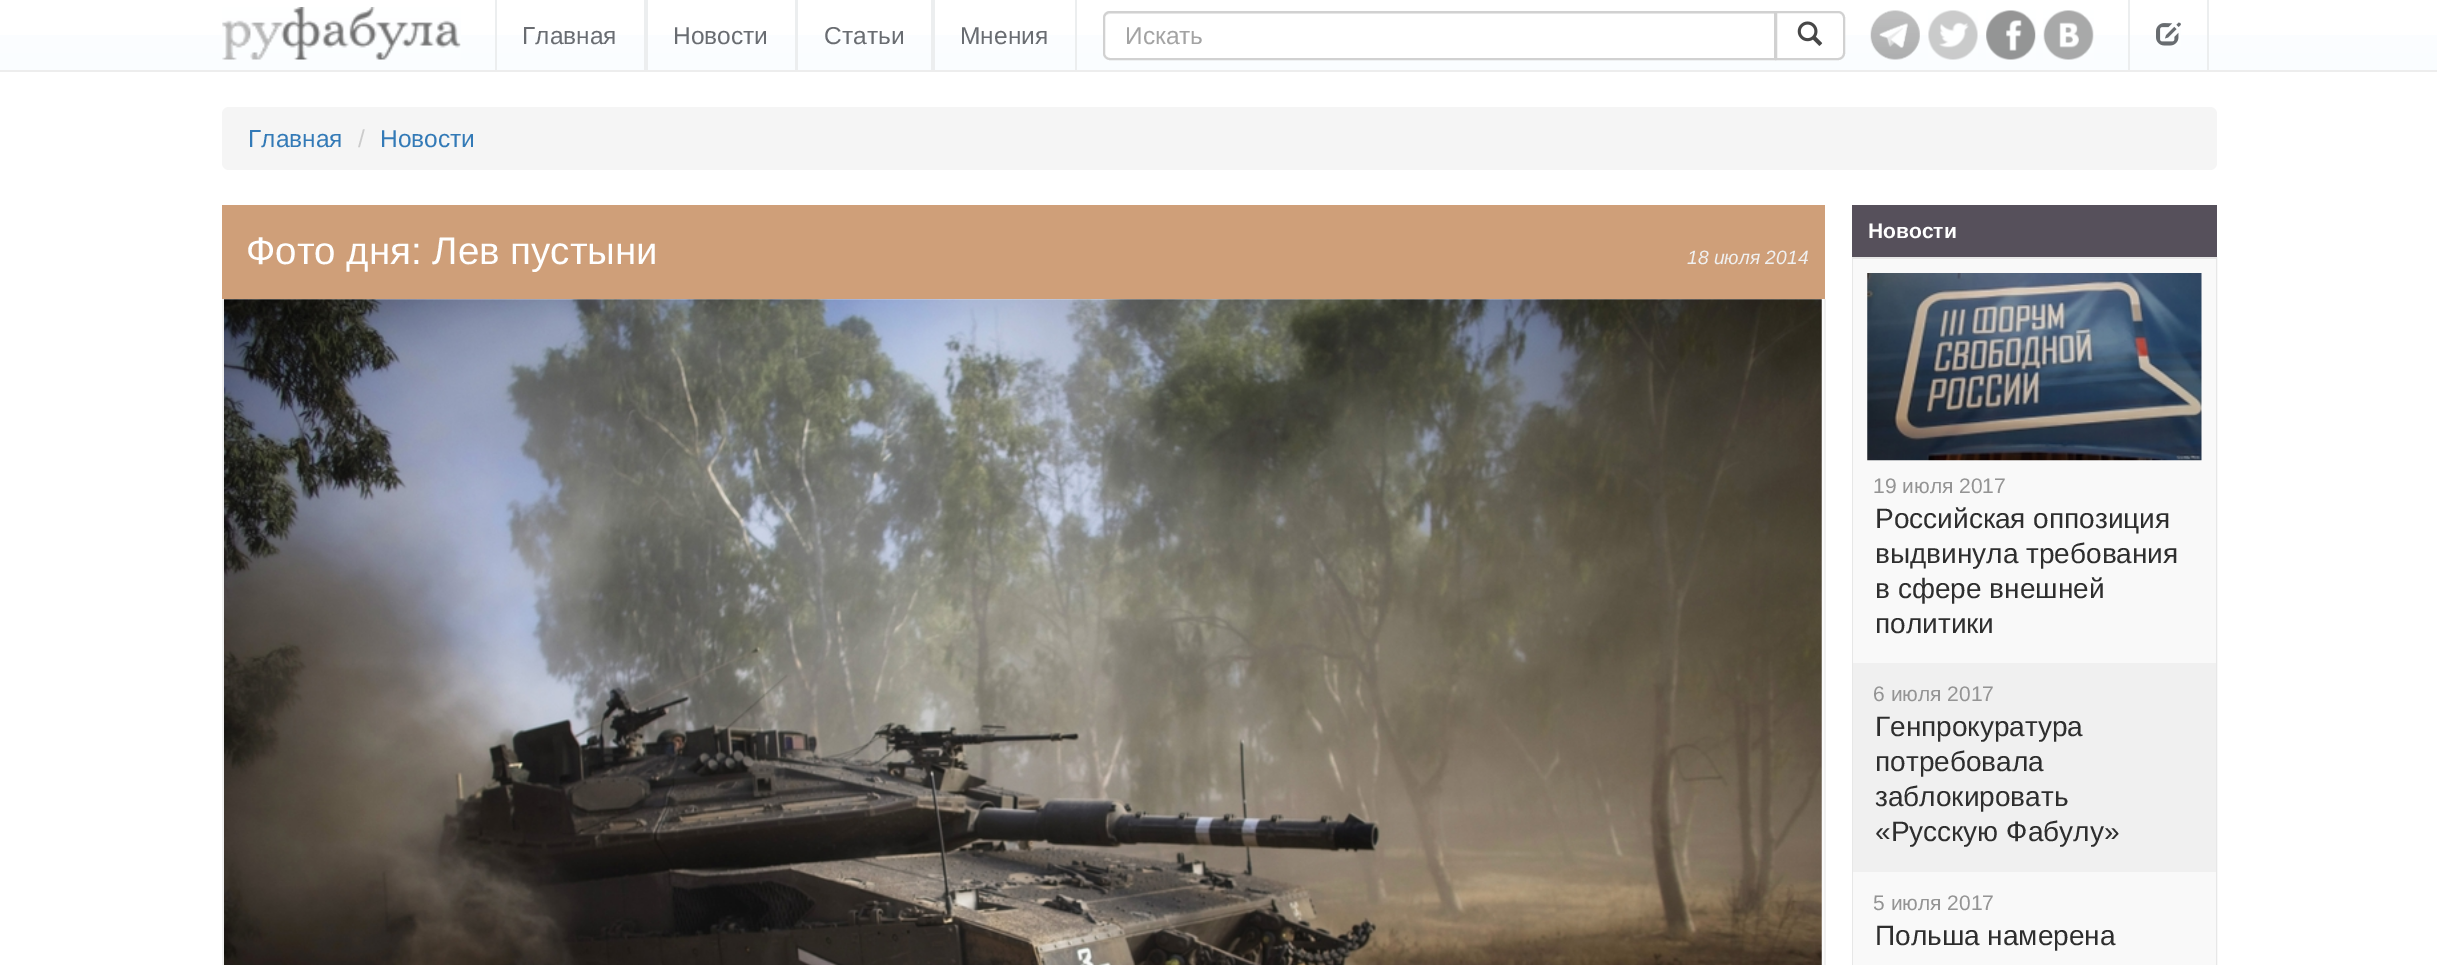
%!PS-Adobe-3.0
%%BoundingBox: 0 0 2437 965
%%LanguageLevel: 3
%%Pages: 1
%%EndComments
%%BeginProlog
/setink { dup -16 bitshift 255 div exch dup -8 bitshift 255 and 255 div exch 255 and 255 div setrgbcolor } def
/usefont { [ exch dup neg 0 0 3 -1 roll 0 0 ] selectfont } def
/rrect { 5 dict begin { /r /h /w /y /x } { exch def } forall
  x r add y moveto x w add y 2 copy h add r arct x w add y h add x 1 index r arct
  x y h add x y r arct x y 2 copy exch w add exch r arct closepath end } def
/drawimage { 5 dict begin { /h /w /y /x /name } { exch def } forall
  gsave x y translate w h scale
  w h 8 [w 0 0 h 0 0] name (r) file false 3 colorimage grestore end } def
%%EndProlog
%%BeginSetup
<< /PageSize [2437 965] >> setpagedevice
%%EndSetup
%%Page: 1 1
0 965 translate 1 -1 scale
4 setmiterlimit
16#FFFFFF setink
0 0 2437 965 rectfill
gsave 0 35 moveto 2437 35 lineto 2437 70 lineto 0 70 lineto closepath clip newpath
<< /ShadingType 2 /ColorSpace /DeviceRGB /Coords [1219 0 1219 70] /Extend [true true] /Function << /FunctionType 2 /Domain [0 1] /C0 [1 1 1] /C1 [0.98 0.992 1] /N 1 >> >> shfill grestore
16#EDEDED setink
0 70 2437 2 rectfill
(img1.raw) 222 7 239 53 drawimage
16#ECEEEF setink
644 0 4 70 rectfill
495 0 2 70 rectfill
/LiberationSans-Regular 24.5 usefont
16#696C71 setink
522 44 moveto (Главная) show
16#ECEEEF setink
795 0 3 70 rectfill
16#696C71 setink
673 44 moveto (Новости) show
16#ECEEEF setink
931 0 4 70 rectfill
16#696C71 setink
824 44 moveto (Статьи) show
16#ECEEEF setink
1075 0 2 70 rectfill
16#696C71 setink
960 44 moveto (Мнения) show
16#FFFFFF setink
1776 12 moveto 1838 12 lineto 1841.5 12 1844 14.5 1844 18 curveto 1844 53 lineto 1844 56.5 1841.5 59 1838 59 curveto 1776 59 lineto closepath gsave fill grestore
16#D1D1D1 setink
2 setlinewidth
stroke
16#FFFFFF setink
1110 11 moveto 1776 11 lineto 1776 60 lineto 1110 60 lineto 1106 60 1103 57 1103 53 curveto 1103 18 lineto 1103 14 1106 11 1110 11 curveto closepath fill
16#EEEEEE setink
1110 14 moveto 1774 14 lineto 1774 58 lineto 1775 58 lineto 1775 12 lineto 1109 12 lineto 1106 12 1104 14 1104 17 curveto 1104 19 lineto 1104 16 1107 14 1110 14 curveto closepath fill
16#D1D1D1 setink
1110 12 moveto 1775 12 lineto 1775 59 lineto 1110 59 lineto 1106.5 59 1104 56.5 1104 53 curveto 1104 18 lineto 1104 14.5 1106.5 12 1110 12 curveto closepath stroke
16#A3A3A3 setink
1125 44 moveto (Искать) show
(img2.raw) 1797 21 26 25 drawimage
(img3.raw) 1870 10 50 50 drawimage
(img4.raw) 1928 10 50 50 drawimage
(img5.raw) 1986 10 50 50 drawimage
(img6.raw) 2043 10 51 50 drawimage
16#ECEEEF setink
2207 0 2 70 rectfill
2128 0 2 70 rectfill
(img7.raw) 2156 22 25 24 drawimage
16#F5F5F5 setink
222 107 1995 63 7 rrect fill
16#337AB7 setink
248 147 moveto (Главная) show
16#CCCCCC setink
358 147 moveto (/) show
16#337AB7 setink
380 147 moveto (Новости) show
16#CF9F79 setink
222 205 1603 94 rectfill
/LiberationSans-Regular 38.5 usefont
16#FFFFFF setink
246 264 moveto (Фото дня: Лев пустыни) show
/LiberationSans-Italic 19.25 usefont
16#F0F0F0 setink
1687 264 moveto (18 июля 2014) show
[
    [1824 299 2 666 16#F0F0F0]
    [222 299 2 666 16#F0F0F0]
    [224 299 1600 666 16#FBFBFB]
] { aload pop setink rectfill } forall
(img8.raw) 224 299 1598 666 drawimage
16#56505B setink
1852 205 365 52 rectfill
/LiberationSans-Bold 21 usefont
16#FFFFFF setink
1868 238 moveto (Новости) show
16#E7E7E7 setink
1853 258 363 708 rectstroke
16#F9F9F9 setink
1853 259 363 404 rectfill
(img9.raw) 1867 273 335 188 drawimage
/LiberationSans-Regular 21 usefont
16#949494 setink
1873 493 moveto (19 июля 2017) show
/LiberationSans-Regular 28 usefont
16#2E2E2E setink
[
    [(Российская оппозиция) 1875 528]
    [(выдвинула требования) 1875 563]
    [(в сфере внешней) 1875 598]
    [(политики) 1875 633]
] { aload pop moveto show } forall
16#F0F0F0 setink
1853 663 363 209 rectfill
/LiberationSans-Regular 21 usefont
16#949494 setink
1873 701 moveto (6 июля 2017) show
/LiberationSans-Regular 28 usefont
16#2E2E2E setink
[
    [(Генпрокуратура) 1875 736]
    [(потребовала) 1875 771]
    [(заблокировать) 1875 806]
    [(«Русскую Фабулу») 1875 841]
] { aload pop moveto show } forall
16#F9F9F9 setink
1853 872 363 93 rectfill
/LiberationSans-Regular 21 usefont
16#949494 setink
1873 910 moveto (5 июля 2017) show
/LiberationSans-Regular 28 usefont
16#2E2E2E setink
1875 945 moveto (Польша намерена) show
showpage
%%EOF
